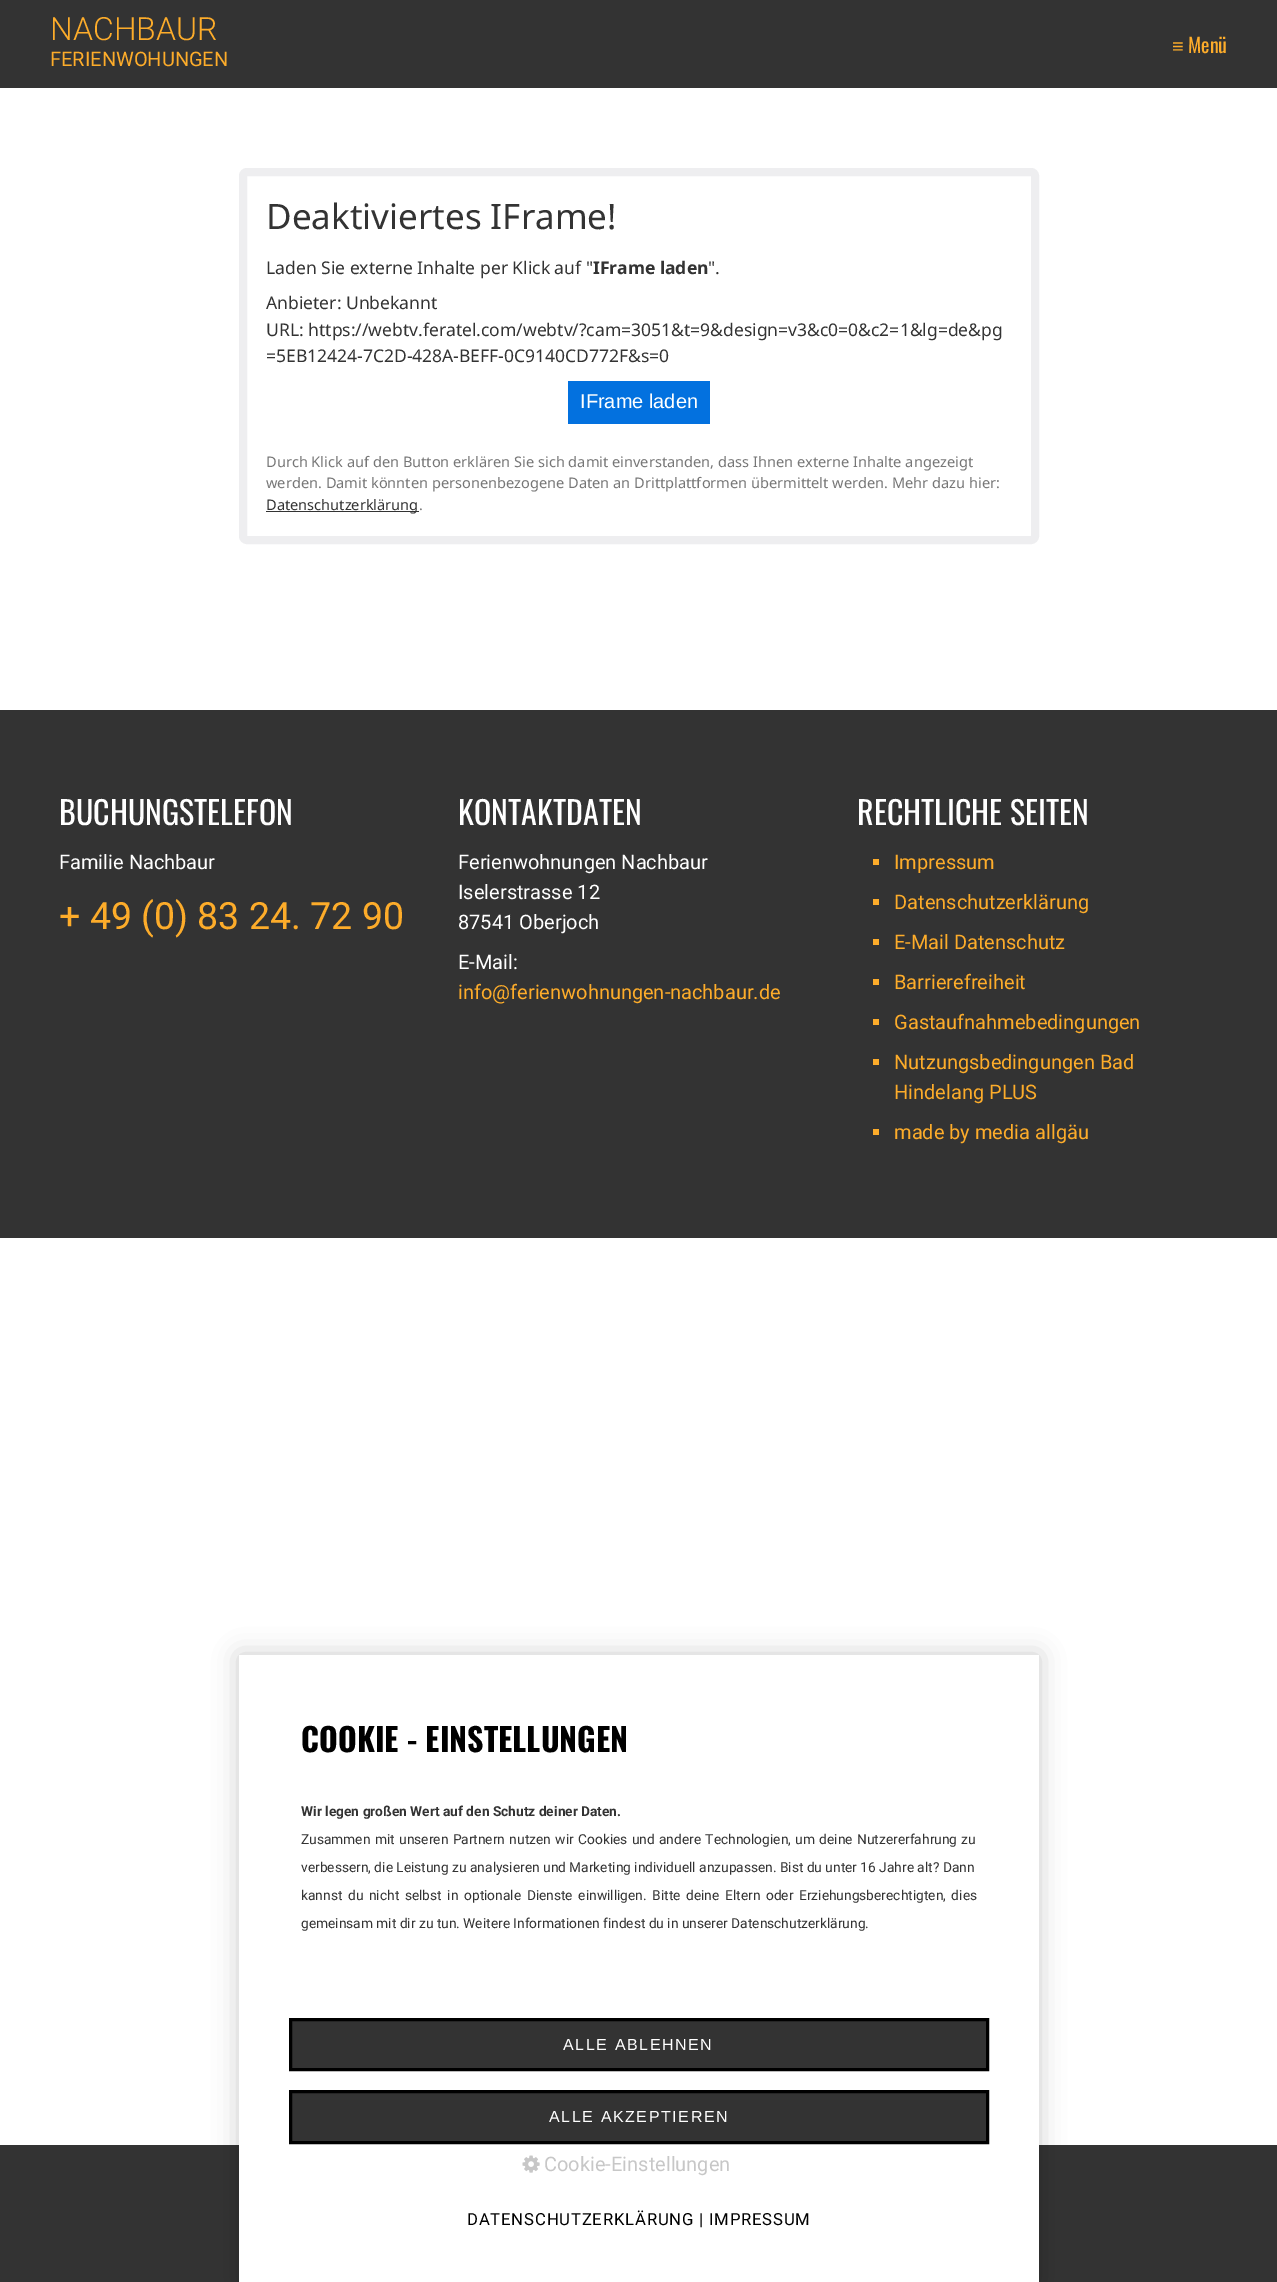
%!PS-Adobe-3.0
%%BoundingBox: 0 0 1277 2282
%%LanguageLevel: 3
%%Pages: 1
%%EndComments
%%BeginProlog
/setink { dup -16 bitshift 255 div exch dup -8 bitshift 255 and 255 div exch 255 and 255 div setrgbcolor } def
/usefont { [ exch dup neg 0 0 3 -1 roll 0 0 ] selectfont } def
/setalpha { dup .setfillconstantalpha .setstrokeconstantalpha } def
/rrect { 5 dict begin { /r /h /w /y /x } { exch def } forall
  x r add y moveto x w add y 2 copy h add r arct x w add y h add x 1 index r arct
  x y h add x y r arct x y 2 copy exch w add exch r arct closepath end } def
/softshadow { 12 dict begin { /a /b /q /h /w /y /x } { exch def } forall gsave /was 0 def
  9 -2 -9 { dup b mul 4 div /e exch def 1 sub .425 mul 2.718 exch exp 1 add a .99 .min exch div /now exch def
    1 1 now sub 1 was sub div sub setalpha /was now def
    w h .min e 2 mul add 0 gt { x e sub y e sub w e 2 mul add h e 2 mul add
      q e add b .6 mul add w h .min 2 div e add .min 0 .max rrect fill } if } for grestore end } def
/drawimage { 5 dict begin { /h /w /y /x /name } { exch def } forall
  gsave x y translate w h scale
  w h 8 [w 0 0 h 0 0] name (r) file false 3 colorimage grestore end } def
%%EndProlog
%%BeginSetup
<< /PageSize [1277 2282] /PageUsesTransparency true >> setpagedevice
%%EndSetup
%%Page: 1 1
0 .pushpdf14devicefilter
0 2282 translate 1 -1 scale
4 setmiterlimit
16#FFFFFF setink
0 0 1277 2282 rectfill
16#333333 setink
0 0 1277 88 rectfill
/Roboto-Light 32 usefont
16#FDAC2A setink
50 40 moveto (NACHBAUR) show
/Roboto-Regular 20 usefont
50 66 moveto (FERIENWOHUNGEN) show
/LiberationSans-Regular 20 usefont
1172 53 moveto (≡) show
/Oswald-Regular 20 usefont
1188 53 moveto (Menü) show
16#EEEEF0 setink
8 setlinewidth
243 172 792 368 4 rrect stroke
/NotoSans-Regular 35 usefont
16#333333 setink
266 229 moveto (Deaktiviertes IFrame!) show
/NotoSans-Regular 17.5 usefont
266 274 moveto (Laden Sie externe Inhalte per Klick auf ") show
/NotoSans-Bold 17.5 usefont
593 274 moveto (IFrame laden) show
/NotoSans-Regular 17.5 usefont
[
    [(".) 708 274]
    [(Anbieter: Unbekannt) 266 309]
    [(URL: https://webtv.feratel.com/webtv/?cam=3051&t=9&design=v3&c0=0&c2=1&lg=de&pg) 266 336]
    [(=5EB12424-7C2D-428A-BEFF-0C9140CD772F&s=0) 266 362]
] { aload pop moveto show } forall
16#0371DF setink
568 381 142 43 rectfill
/LiberationSans-Regular 20 usefont
16#FFFFFF setink
580 408 moveto (IFrame laden) show
/NotoSans-Regular 14.58 usefont
16#777777 setink
266 467 moveto (Durch Klick auf den Button erklären Sie sich damit einverstanden, dass Ihnen externe Inhalte angezeigt) show
266 488 moveto (werden. Damit könnten personenbezogene Daten an Drittplattformen übermittelt werden. Mehr dazu hier:) show
16#333333 setink
266 511 153 1 rectfill
266 510 moveto (Datenschutzerklärung) show
16#777777 setink
419 510 moveto (.) show
16#333333 setink
0 710 1277 528 rectfill
/Oswald-Regular 32 usefont
16#FFFFFF setink
59 825 moveto (BUCHUNGSTELEFON) show
/Roboto-Regular 20 usefont
59 869 moveto (Familie Nachbaur) show
/Roboto-Regular 37.5 usefont
16#FDAC2A setink
59 929 moveto (+ 49 \(0\) 83 24. 72 90) show
/Oswald-Regular 32 usefont
16#FFFFFF setink
458 825 moveto (KONTAKTDATEN) show
/Roboto-Regular 20 usefont
[
    [(Ferienwohnungen Nachbaur) 458 869]
    [(Iselerstrasse 12) 458 899]
    [(87541 Oberjoch) 458 929]
    [(E-Mail:) 458 969]
] { aload pop moveto show } forall
16#FDAC2A setink
458 999 moveto (info@ferienwohnungen-nachbaur.de) show
/Oswald-Regular 32 usefont
16#FFFFFF setink
857 825 moveto (RECHTLICHE SEITEN) show
16#FDAC2A setink
873 859 6 6 rectfill
/Roboto-Regular 20 usefont
894 869 moveto (Impressum) show
873 899 6 6 rectfill
894 909 moveto (Datenschutzerklärung) show
873 939 6 6 rectfill
894 949 moveto (E-Mail Datenschutz) show
873 979 6 6 rectfill
894 989 moveto (Barrierefreiheit) show
873 1019 6 6 rectfill
894 1029 moveto (Gastaufnahmebedingungen) show
873 1059 6 6 rectfill
894 1069 moveto (Nutzungsbedingungen Bad) show
894 1099 moveto (Hindelang PLUS) show
873 1129 6 6 rectfill
894 1139 moveto (made by media allgäu) show
16#333333 setink
0 2145 1277 137 rectfill
16#000000 setink
239 1655 800 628 0 12.5 0.2 softshadow
16#FFFFFF setink
239 1655 800 627 rectfill
/Oswald-Bold 32 usefont
16#000000 setink
301 1752 moveto (COOKIE - EINSTELLUNGEN) show
/Roboto-Bold 13.75 usefont
16#333333 setink
301 1816 moveto (Wir legen großen Wert auf den Schutz deiner Daten.) show
/Roboto-Regular 13.75 usefont
301 1844 moveto 1 0 32 (Zusammen mit unseren Partnern nutzen wir Cookies und andere Technologien, um deine Nutzererfahrung zu) widthshow
301 1872 moveto (verbessern, die Leistung zu analysieren und Marketing individuell anzupassen. Bist du unter 16 Jahre alt? Dann) show
301 1900 moveto 2.25 0 32 (kannst du nicht selbst in optionale Dienste einwilligen. Bitte deine Eltern oder Erziehungsberechtigten, dies) widthshow
301 1928 moveto (gemeinsam mit dir zu tun. Weitere Informationen findest du in unserer Datenschutzerklärung.) show
290.5 2019.5 moveto 987.5 2019.5 lineto 987.5 2069.5 lineto 290.5 2069.5 lineto closepath gsave fill grestore
16#000000 setink
3 setlinewidth
stroke
/LiberationSans-Regular 16 usefont
16#FFFFFF setink
563 2050 moveto 1.6 0 (ALLE ABLEHNEN) ashow
16#333333 setink
290.5 2091.5 moveto 987.5 2091.5 lineto 987.5 2142.5 lineto 290.5 2142.5 lineto closepath gsave fill grestore
16#000000 setink
stroke
16#FFFFFF setink
549 2122 moveto 1.6 0 (ALLE AKZEPTIEREN) ashow
(img1.raw) 522 2155 18 18 drawimage
/Roboto-Regular 20 usefont
16#C7C7C7 setink
544 2171 moveto (Cookie-Einstellungen) show
/Roboto-Regular 16.7 usefont
16#000000 setink
467 2225 moveto 0.8 0 (DATENSCHUTZERKLÄRUNG | IMPRESSUM) ashow
.poppdf14devicefilter showpage
%%EOF
